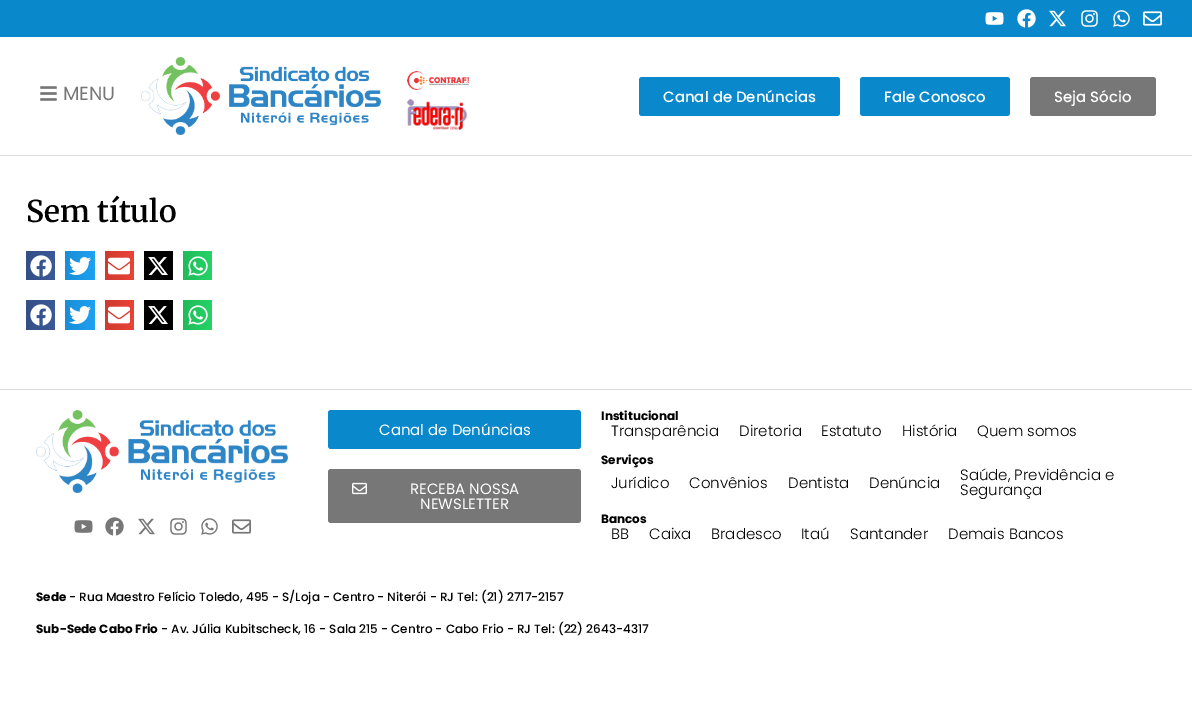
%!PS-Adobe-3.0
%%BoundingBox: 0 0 1192 717
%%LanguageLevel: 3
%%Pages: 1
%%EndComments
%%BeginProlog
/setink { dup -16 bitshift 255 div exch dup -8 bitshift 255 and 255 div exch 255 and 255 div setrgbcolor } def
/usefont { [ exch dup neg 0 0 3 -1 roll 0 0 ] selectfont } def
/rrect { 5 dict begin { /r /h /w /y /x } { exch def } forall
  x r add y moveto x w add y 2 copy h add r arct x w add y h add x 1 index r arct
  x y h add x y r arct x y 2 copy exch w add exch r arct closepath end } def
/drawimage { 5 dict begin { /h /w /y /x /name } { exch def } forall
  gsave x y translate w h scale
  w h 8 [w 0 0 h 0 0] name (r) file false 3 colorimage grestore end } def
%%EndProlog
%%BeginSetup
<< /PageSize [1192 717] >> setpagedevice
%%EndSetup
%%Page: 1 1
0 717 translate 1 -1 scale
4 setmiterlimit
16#FFFFFF setink
0 0 1192 717 rectfill
16#0989CB setink
0 0 1192 37 rectfill
(img1.raw) 985 12 19 13 drawimage
(img2.raw) 1017 9 19 19 drawimage
(img3.raw) 1049 10 17 17 drawimage
(img4.raw) 1081 10 17 17 drawimage
(img5.raw) 1113 10 17 17 drawimage
(img6.raw) 1143 11 19 15 drawimage
16#DDDDDD setink
0 155 1192 1 rectfill
(img7.raw) 40 86 17 15 drawimage
/Poppins-Regular 19 usefont
16#777777 setink
63 100 moveto (MENU) show
(img8.raw) 141 57 240 78 drawimage
(img9.raw) 407 71 62 19 drawimage
(img10.raw) 407 99 62 31 drawimage
16#0989CB setink
639 77 201 39 3 rrect fill
/Poppins-Medium 15 usefont
16#FFFFFF setink
663 102 moveto (Canal de Denúncias) show
16#0989CB setink
860 77 150 39 3 rrect fill
16#FFFFFF setink
884 102 moveto (Fale Conosco) show
16#777777 setink
1030 77 126 39 3 rrect fill
16#FFFFFF setink
1054 102 moveto (Seja Sócio) show
/Merriweather-SemiBold 30 usefont
16#000000 setink
26 222 moveto (Sem título) show
gsave 26 251 moveto 55 251 lineto 55 280 lineto 26 280 lineto closepath clip newpath
<< /ShadingType 2 /ColorSpace /DeviceRGB /Coords [26 266 55 266] /Extend [true true] /Function << /FunctionType 2 /Domain [0 1] /C0 [0.204 0.306 0.525] /C1 [0.231 0.349 0.596] /N 1 >> >> shfill grestore
(img11.raw) 30 255 22 22 drawimage
gsave 65 251 moveto 95 251 lineto 95 280 lineto 65 280 lineto closepath clip newpath
<< /ShadingType 2 /ColorSpace /DeviceRGB /Coords [65 266 95 266] /Extend [true true] /Function << /FunctionType 2 /Domain [0 1] /C0 [0.102 0.557 0.835] /C1 [0.114 0.631 0.949] /N 1 >> >> shfill grestore
(img12.raw) 69 257 22 18 drawimage
gsave 105 251 moveto 134 251 lineto 134 280 lineto 105 280 lineto closepath clip newpath
<< /ShadingType 2 /ColorSpace /DeviceRGB /Coords [105 266 134 266] /Extend [true true] /Function << /FunctionType 2 /Domain [0 1] /C0 [0.808 0.231 0.184] /C1 [0.918 0.263 0.208] /N 1 >> >> shfill grestore
(img13.raw) 108 257 22 18 drawimage
144 251 29 29 rectfill
(img14.raw) 148 257 20 18 drawimage
gsave 183 251 moveto 212 251 lineto 212 280 lineto 183 280 lineto closepath clip newpath
<< /ShadingType 2 /ColorSpace /DeviceRGB /Coords [183 266 212 266] /Extend [true true] /Function << /FunctionType 2 /Domain [0 1] /C0 [0.129 0.729 0.353] /C1 [0.145 0.827 0.4] /N 1 >> >> shfill grestore
(img15.raw) 188 256 20 20 drawimage
gsave 26 300 moveto 55 300 lineto 55 330 lineto 26 330 lineto closepath clip newpath
<< /ShadingType 2 /ColorSpace /DeviceRGB /Coords [26 315 55 315] /Extend [true true] /Function << /FunctionType 2 /Domain [0 1] /C0 [0.204 0.306 0.525] /C1 [0.231 0.349 0.596] /N 1 >> >> shfill grestore
(img11.raw) 30 304 22 22 drawimage
gsave 65 300 moveto 95 300 lineto 95 330 lineto 65 330 lineto closepath clip newpath
<< /ShadingType 2 /ColorSpace /DeviceRGB /Coords [65 315 95 315] /Extend [true true] /Function << /FunctionType 2 /Domain [0 1] /C0 [0.102 0.557 0.835] /C1 [0.114 0.631 0.949] /N 1 >> >> shfill grestore
(img12.raw) 69 306 22 18 drawimage
gsave 105 300 moveto 134 300 lineto 134 330 lineto 105 330 lineto closepath clip newpath
<< /ShadingType 2 /ColorSpace /DeviceRGB /Coords [105 315 134 315] /Extend [true true] /Function << /FunctionType 2 /Domain [0 1] /C0 [0.808 0.231 0.184] /C1 [0.918 0.263 0.208] /N 1 >> >> shfill grestore
(img13.raw) 108 306 22 18 drawimage
144 300 29 30 rectfill
(img14.raw) 148 306 20 18 drawimage
gsave 183 300 moveto 212 300 lineto 212 330 lineto 183 330 lineto closepath clip newpath
<< /ShadingType 2 /ColorSpace /DeviceRGB /Coords [183 315 212 315] /Extend [true true] /Function << /FunctionType 2 /Domain [0 1] /C0 [0.129 0.729 0.353] /C1 [0.145 0.827 0.4] /N 1 >> >> shfill grestore
(img15.raw) 188 305 20 20 drawimage
16#DDDDDD setink
0 389 1192 1 rectfill
(img16.raw) 36 410 252 83 drawimage
(img17.raw) 74 520 19 13 drawimage
(img18.raw) 105 517 19 19 drawimage
(img19.raw) 138 518 17 17 drawimage
(img20.raw) 170 518 17 17 drawimage
(img21.raw) 201 518 17 17 drawimage
(img22.raw) 232 519 19 15 drawimage
16#0989CB setink
328 410 253 39 3 rrect fill
/Poppins-Regular 15 usefont
16#FFFFFF setink
379 435 moveto (Canal de Denúncias) show
16#777777 setink
328 469 253 54 3 rrect fill
(img23.raw) 352 482 15 13 drawimage
16#FFFFFF setink
410 494 moveto (RECEBA NOSSA) show
420 509 moveto (NEWSLETTER) show
/Poppins-Bold 12 usefont
16#000000 setink
601 420 moveto (Institucional) show
/Poppins-Light 15 usefont
[
    [(Transparência) 611 436]
    [(Diretoria) 739 436]
    [(Estatuto) 821 436]
    [(História) 902 436]
    [(Quem somos) 977 436]
] { aload pop moveto show } forall
/Poppins-Bold 12 usefont
601 464 moveto (Serviços) show
/Poppins-Light 15 usefont
[
    [(Jurídico) 611 488]
    [(Convênios) 689 488]
    [(Dentista) 788 488]
    [(Denúncia) 869 488]
    [(Saúde, Previdência e) 960 480]
    [(Segurança) 960 495]
] { aload pop moveto show } forall
/Poppins-Bold 12 usefont
601 523 moveto (Bancos) show
/Poppins-Light 15 usefont
[
    [(BB) 611 539]
    [(Caixa) 649 539]
    [(Bradesco) 711 539]
    [(Itaú) 801 539]
    [(Santander) 850 539]
    [(Demais Bancos) 948 539]
] { aload pop moveto show } forall
/Poppins-Bold 12 usefont
36 601 moveto (Sede) show
/Poppins-Medium 12 usefont
69 601 moveto (- Rua Maestro Felício Toledo, 495 - S/Loja - Centro - Niterói - RJ Tel: \(21\) 2717-2157) show
/Poppins-Bold 12 usefont
36 633 moveto (Sub-Sede Cabo Frio) show
/Poppins-Medium 12 usefont
161 633 moveto (- Av. Júlia Kubitscheck, 16 - Sala 215 - Centro - Cabo Frio - RJ Tel: \(22\) 2643-4317) show
showpage
%%EOF
